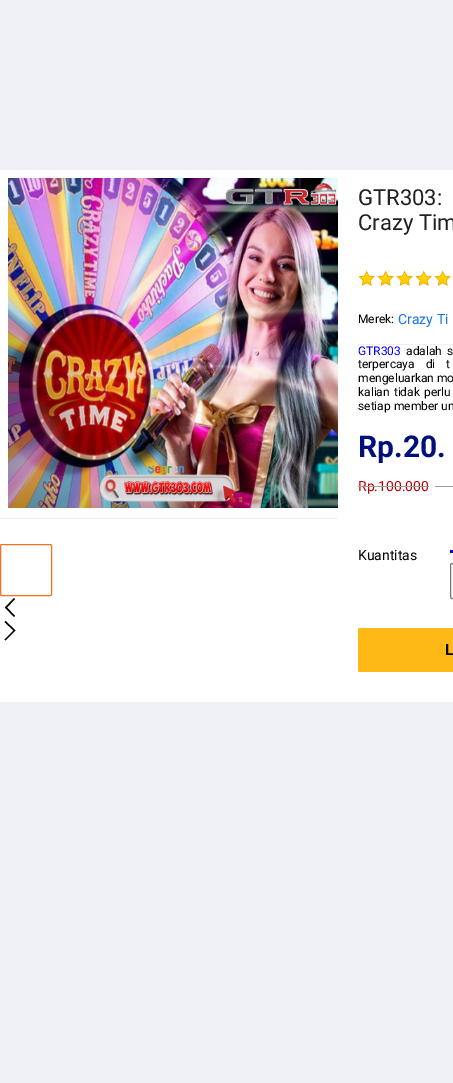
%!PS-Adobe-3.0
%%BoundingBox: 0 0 453 1083
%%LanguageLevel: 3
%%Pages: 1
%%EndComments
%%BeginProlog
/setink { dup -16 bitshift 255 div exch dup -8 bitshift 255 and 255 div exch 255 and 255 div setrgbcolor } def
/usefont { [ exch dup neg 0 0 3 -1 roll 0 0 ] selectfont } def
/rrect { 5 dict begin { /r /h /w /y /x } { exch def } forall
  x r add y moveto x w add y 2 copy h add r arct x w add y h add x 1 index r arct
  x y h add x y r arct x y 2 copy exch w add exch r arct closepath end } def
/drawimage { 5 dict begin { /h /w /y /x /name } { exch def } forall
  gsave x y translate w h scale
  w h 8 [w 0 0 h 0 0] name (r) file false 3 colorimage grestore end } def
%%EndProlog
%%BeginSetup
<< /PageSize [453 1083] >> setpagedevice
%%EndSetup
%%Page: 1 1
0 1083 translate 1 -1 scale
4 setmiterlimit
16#EFF0F5 setink
0 0 453 1083 rectfill
16#FFFFFF setink
0 170 453 532 rectfill
16#EFF0F5 setink
0 518 338 1 rectfill
(img1.raw) 8 178 330 330 drawimage
16#F57224 setink
0.5 544.5 51 51 1.5 rrect stroke
16#000000 setink
15 616 moveto 7 607.5 lineto 15 599 lineto 14 598 lineto 5 607.5 lineto 14 617 lineto closepath 5.5 640.5 moveto 4.5 639.5 lineto 13.5 630.5 lineto 4.5 622 lineto 5.5 621 lineto 15.5 630.5 lineto closepath fill
/Roboto-Regular 22 usefont
16#212121 setink
358 205 moveto (GTR303:) show
358 230 moveto (Crazy Tim) show
(img2.raw) 358 270 17 16 drawimage
(img2.raw) 377 270 17 16 drawimage
(img2.raw) 396 270 17 16 drawimage
(img2.raw) 415 270 17 16 drawimage
(img2.raw) 434 270 17 16 drawimage
16#EFF0F5 setink
358 344 95 1 rectfill
/Roboto-Regular 12 usefont
16#000000 setink
358 323 moveto (Merek:) show
/Roboto-Regular 14 usefont
16#1A73E8 setink
398 324 moveto (Crazy Ti) show
/Roboto-Regular 12 usefont
16#0000EE setink
358 355 moveto (GTR303) show
16#000000 setink
406 355 moveto 2 0 32 (adalah s) widthshow
358 368 moveto 8 0 32 (terpercaya di t) widthshow
358 382 moveto (mengeluarkan mo) show
358 396 moveto 1 0 32 (kalian tidak perlu) widthshow
358 410 moveto (setiap member un) show
/Roboto-Bold 30 usefont
16#00107A setink
358 457 moveto (Rp.20.) show
/Roboto-Regular 14 usefont
16#C00000 setink
358 491 moveto (Rp.100.000) show
16#9E9E9E setink
358 486 71 1 rectfill
435 486 18 1 rectfill
16#000000 setink
358 560 moveto (Kuantitas) show
16#0000EE setink
450 550 3 3 rectfill
16#767676 setink
450.5 563.5 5 35 1.5 rrect stroke
16#FFB916 setink
358 628 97 44 2 rrect fill
/LiberationSans-Bold 16 usefont
16#000000 setink
445 655 moveto (L) show
showpage
%%EOF
